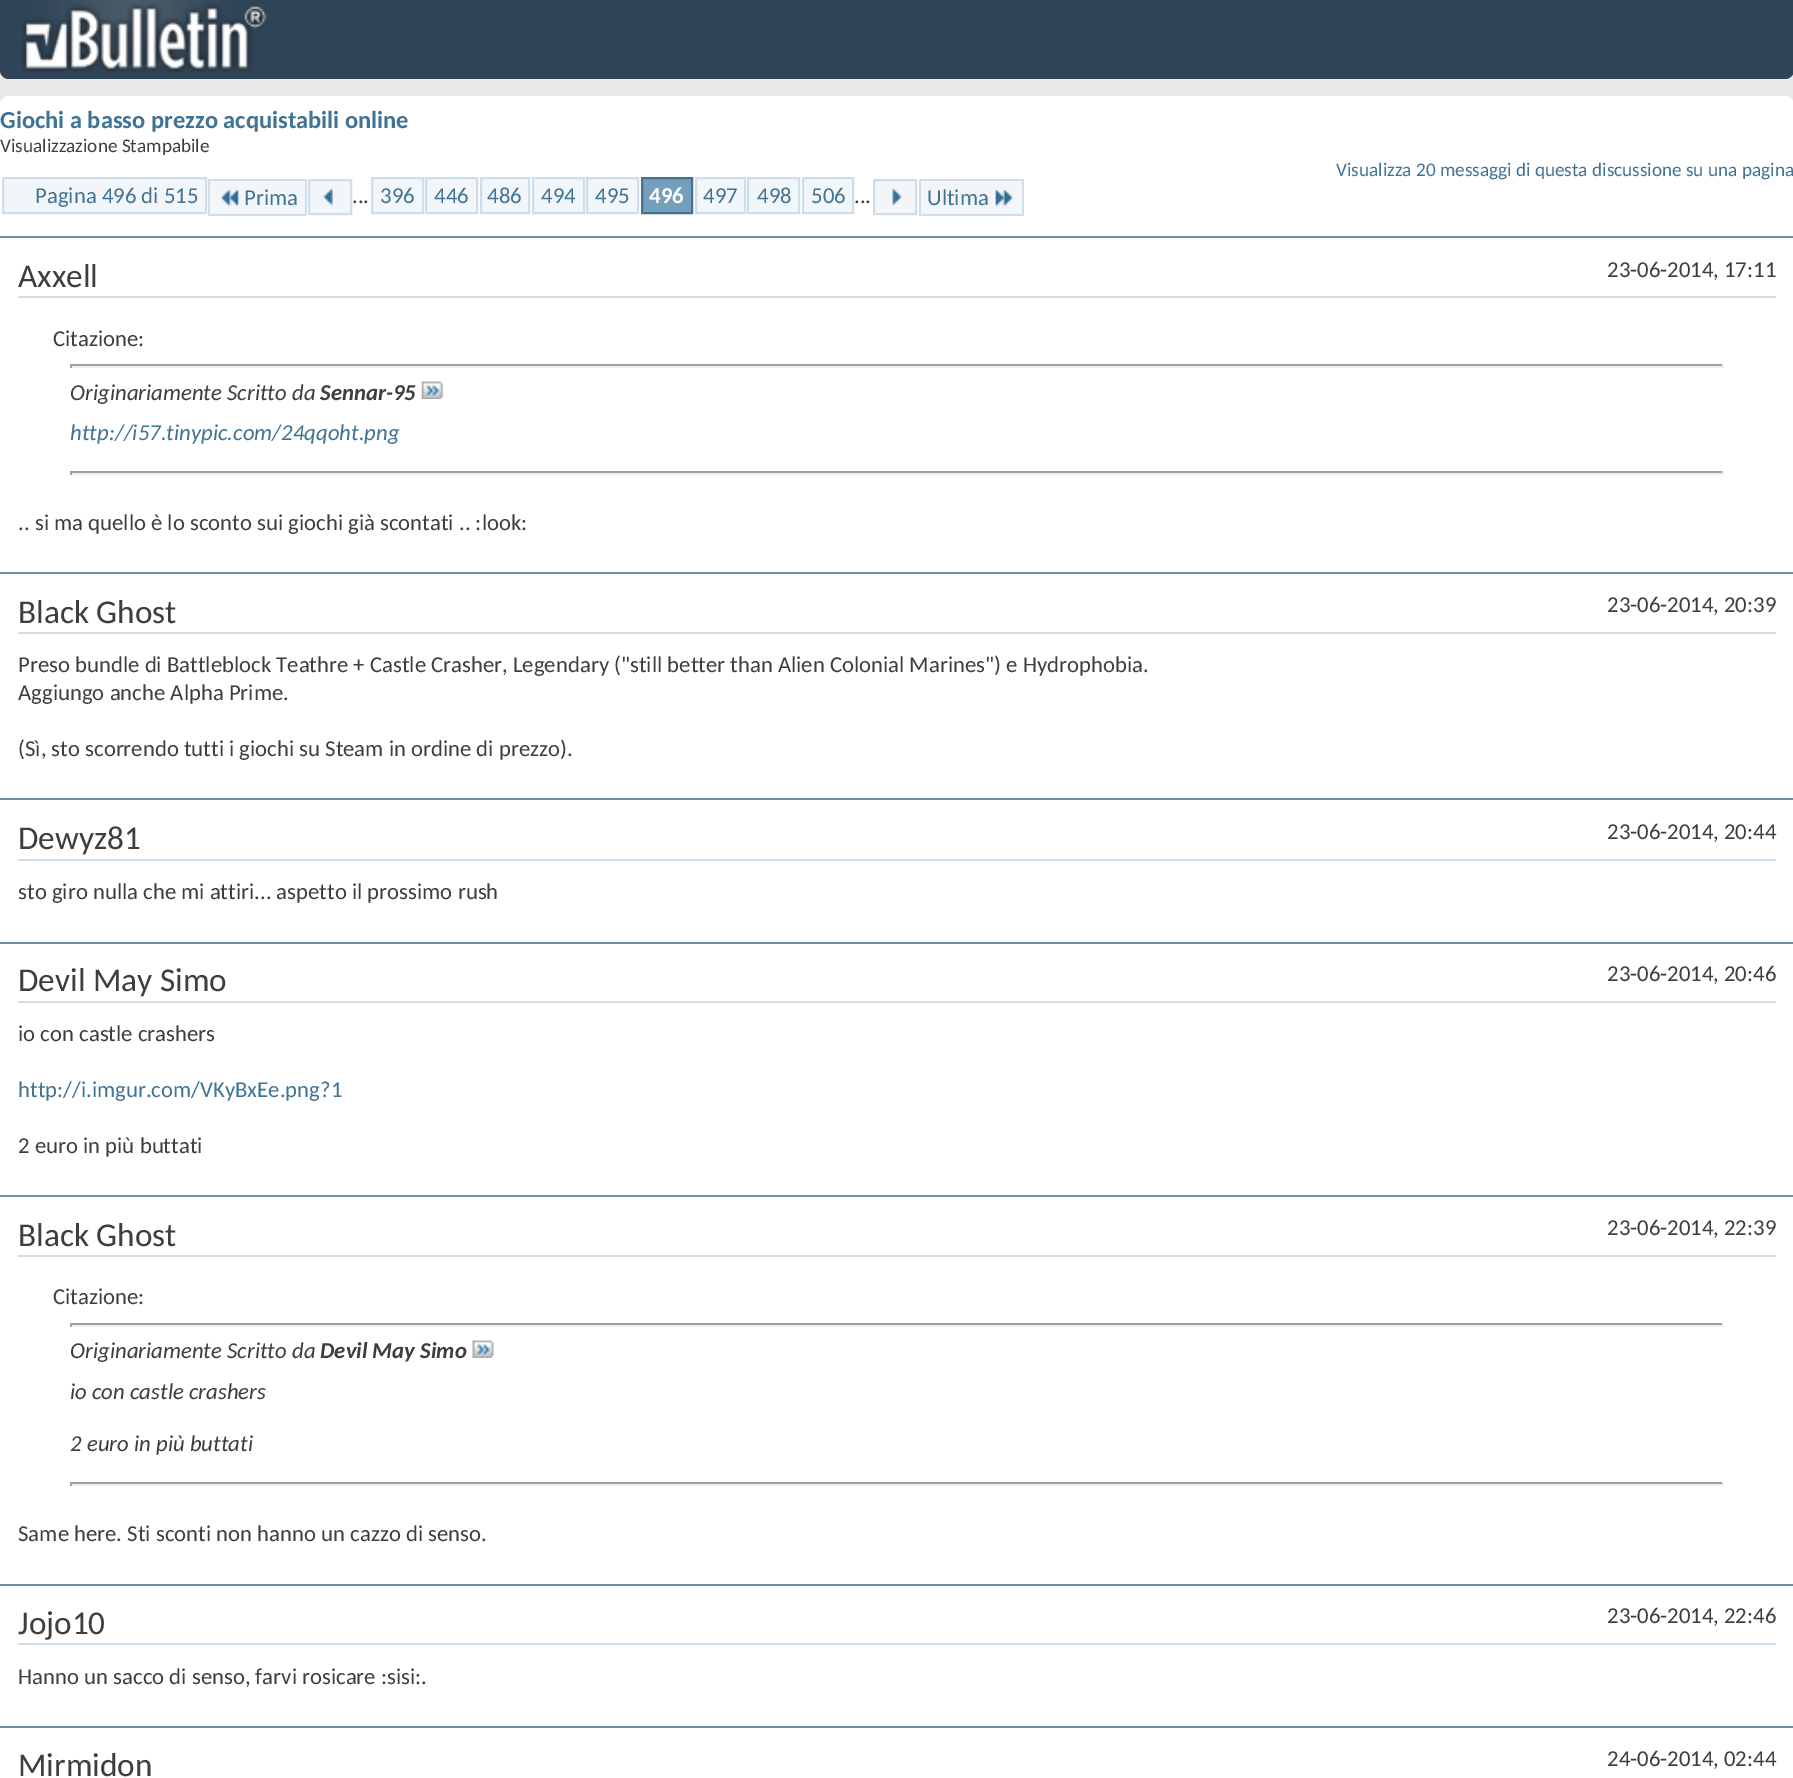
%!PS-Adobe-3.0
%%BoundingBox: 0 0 1793 1778
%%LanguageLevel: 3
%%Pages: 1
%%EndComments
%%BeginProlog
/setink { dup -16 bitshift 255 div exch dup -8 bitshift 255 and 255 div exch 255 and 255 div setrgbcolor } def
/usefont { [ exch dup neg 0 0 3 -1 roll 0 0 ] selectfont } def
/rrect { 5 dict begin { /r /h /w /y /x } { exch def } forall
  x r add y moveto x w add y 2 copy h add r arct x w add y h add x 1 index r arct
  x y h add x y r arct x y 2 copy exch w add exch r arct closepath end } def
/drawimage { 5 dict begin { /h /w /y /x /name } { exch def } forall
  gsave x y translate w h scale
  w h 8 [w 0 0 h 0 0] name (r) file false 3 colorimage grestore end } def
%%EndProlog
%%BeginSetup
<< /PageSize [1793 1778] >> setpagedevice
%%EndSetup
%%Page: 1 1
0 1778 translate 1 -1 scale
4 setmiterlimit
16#E9E9E9 setink
0 0 1793 1778 rectfill
16#2F4456 setink
0 0 moveto 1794 0 lineto 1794 70 lineto 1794 75 1790 79 1785 79 curveto 9 79 lineto 4 79 0 75 0 70 curveto closepath fill
(img1.raw) 21 0 246 73 drawimage
16#FFFFFF setink
0 96 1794 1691 9 rrect fill
/Carlito-Bold 24.5 usefont
16#417394 setink
0 128 moveto (Giochi a basso prezzo acquistabili online) show
/Carlito-Regular 19.25 usefont
16#3E3E3E setink
0 152 moveto (Visualizzazione Stampabile) show
16#417394 setink
1336 176 moveto (Visualizza 20 messaggi di questa discussione su una pagina) show
16#F2F6F8 setink
3 178 moveto 206 178 lineto 206 213 lineto 3 213 lineto closepath gsave fill grestore
16#CEDFEB setink
2 setlinewidth
stroke
/Carlito-Regular 22.75 usefont
16#417394 setink
35 203 moveto (Pagina 496 di 515) show
16#F2F6F8 setink
210 181 95 33 rectfill
(img2.raw) 220 188 19 19 drawimage
16#417394 setink
244 205 moveto (Prima) show
[
    [208 179 98 2 16#CEDFEB]
    [208 214 35 2 16#CEDFEB]
    [208 179 2 36 16#CEDFEB]
    [305 179 2 36 16#CEDFEB]
    [243 214 63 2 16#CEDFEB]
] { aload pop setink rectfill } forall
16#F2F6F8 setink
309 180 moveto 351 180 lineto 351 214 lineto 309 214 lineto closepath gsave fill grestore
16#CEDFEB setink
stroke
(img3.raw) 323 188 10 18 drawimage
16#3E3E3E setink
352 203 moveto (...) show
16#F2F6F8 setink
372 178 moveto 423 178 lineto 423 213 lineto 372 213 lineto closepath gsave fill grestore
16#CEDFEB setink
stroke
16#417394 setink
380 203 moveto (396) show
16#F2F6F8 setink
426 178 moveto 477 178 lineto 477 213 lineto 426 213 lineto closepath gsave fill grestore
16#CEDFEB setink
stroke
16#417394 setink
434 203 moveto (446) show
16#F2F6F8 setink
481 178 moveto 529 178 lineto 529 213 lineto 481 213 lineto closepath gsave fill grestore
16#CEDFEB setink
stroke
16#417394 setink
487 203 moveto (486) show
16#F2F6F8 setink
533 178 moveto 584 178 lineto 584 213 lineto 533 213 lineto closepath gsave fill grestore
16#CEDFEB setink
stroke
16#417394 setink
541 203 moveto (494) show
16#F2F6F8 setink
587 178 moveto 638 178 lineto 638 213 lineto 587 213 lineto closepath gsave fill grestore
16#CEDFEB setink
stroke
16#417394 setink
595 203 moveto (495) show
16#759FBB setink
642 178 moveto 692 178 lineto 692 213 lineto 642 213 lineto closepath gsave fill grestore
16#417394 setink
stroke
/Carlito-Bold 22.75 usefont
16#FFFFFF setink
649 203 moveto (496) show
16#F2F6F8 setink
696 178 moveto 745 178 lineto 745 213 lineto 696 213 lineto closepath gsave fill grestore
16#CEDFEB setink
stroke
/Carlito-Regular 22.75 usefont
16#417394 setink
703 203 moveto (497) show
16#F2F6F8 setink
748 178 moveto 799 178 lineto 799 213 lineto 748 213 lineto closepath gsave fill grestore
16#CEDFEB setink
stroke
16#417394 setink
757 203 moveto (498) show
16#F2F6F8 setink
803 178 moveto 853 178 lineto 853 213 lineto 803 213 lineto closepath gsave fill grestore
16#CEDFEB setink
stroke
16#417394 setink
811 203 moveto (506) show
16#3E3E3E setink
854 203 moveto (...) show
16#F2F6F8 setink
874 180 moveto 916 180 lineto 916 214 lineto 874 214 lineto closepath gsave fill grestore
16#CEDFEB setink
stroke
(img4.raw) 892 188 10 18 drawimage
16#F2F6F8 setink
921 181 101 33 rectfill
16#417394 setink
927 205 moveto (Ultima) show
[
    [919 179 105 2 16#CEDFEB]
    [919 214 70 2 16#CEDFEB]
    [919 179 2 36 16#CEDFEB]
    [1022 179 2 36 16#CEDFEB]
    [989 214 35 2 16#CEDFEB]
] { aload pop setink rectfill } forall
(img5.raw) 995 188 19 19 drawimage
16#6B91AB setink
0 236 1793 2 rectfill
16#CEDFEB setink
18 296 1758 2 rectfill
/Carlito-Regular 33.25 usefont
16#3E3E3E setink
18 287 moveto (Axxell) show
/Carlito-Regular 22.75 usefont
1607 277 moveto (23-06-2014, 17:11) show
53 346 moveto (Citazione:) show
[
    [70 364 1654 2 16#9F9F9F]
    [1722 364 2 4 16#EEEEEE]
    [70 366 1654 2 16#EEEEEE]
    [70 364 2 4 16#9F9F9F]
] { aload pop setink rectfill } forall
/Carlito-Italic 22.75 usefont
16#3E3E3E setink
70 400 moveto (Originariamente Scritto da) show
/Carlito-BoldItalic 22.75 usefont
320 400 moveto (Sennar-95) show
(img6.raw) 421 381 22 18 drawimage
/Carlito-Italic 22.75 usefont
16#417394 setink
70 440 moveto (http://i57.tinypic.com/24qqoht.png) show
[
    [70 471 1654 2 16#9F9F9F]
    [1722 471 2 4 16#EEEEEE]
    [70 473 1654 2 16#EEEEEE]
    [70 471 2 4 16#9F9F9F]
] { aload pop setink rectfill } forall
/Carlito-Regular 22.75 usefont
16#3E3E3E setink
18 530 moveto (.. si ma quello è lo sconto sui giochi già scontati .. :look:) show
16#6B91AB setink
0 572 1793 2 rectfill
16#CEDFEB setink
18 632 1758 2 rectfill
/Carlito-Regular 33.25 usefont
16#3E3E3E setink
18 623 moveto (Black Ghost) show
/Carlito-Regular 22.75 usefont
[
    [(23-06-2014, 20:39) 1607 612]
    [(Preso bundle di Battleblock Teathre + Castle Crasher, Legendary \("still better than Alien Colonial Marines"\) e Hydrophobia.) 18 672]
    [(Aggiungo anche Alpha Prime.) 18 700]
    [(\(Sì, sto scorrendo tutti i giochi su Steam in ordine di prezzo\).) 18 756]
] { aload pop moveto show } forall
16#6B91AB setink
0 798 1793 2 rectfill
16#CEDFEB setink
18 859 1758 2 rectfill
/Carlito-Regular 33.25 usefont
16#3E3E3E setink
18 849 moveto (Dewyz81) show
/Carlito-Regular 22.75 usefont
1607 839 moveto (23-06-2014, 20:44) show
18 899 moveto (sto giro nulla che mi attiri... aspetto il prossimo rush) show
16#6B91AB setink
0 942 1793 2 rectfill
16#CEDFEB setink
18 1001 1758 2 rectfill
/Carlito-Regular 33.25 usefont
16#3E3E3E setink
18 991 moveto (Devil May Simo) show
/Carlito-Regular 22.75 usefont
1607 981 moveto (23-06-2014, 20:46) show
18 1041 moveto (io con castle crashers) show
16#417394 setink
18 1097 moveto (http://i.imgur.com/VKyBxEe.png?1) show
16#3E3E3E setink
18 1153 moveto (2 euro in più buttati) show
16#6B91AB setink
0 1195 1793 2 rectfill
16#CEDFEB setink
18 1255 1758 2 rectfill
/Carlito-Regular 33.25 usefont
16#3E3E3E setink
18 1246 moveto (Black Ghost) show
/Carlito-Regular 22.75 usefont
1607 1235 moveto (23-06-2014, 22:39) show
53 1304 moveto (Citazione:) show
[
    [70 1323 1654 2 16#9F9F9F]
    [1722 1323 2 4 16#EEEEEE]
    [70 1325 1654 2 16#EEEEEE]
    [70 1323 2 4 16#9F9F9F]
] { aload pop setink rectfill } forall
/Carlito-Italic 22.75 usefont
16#3E3E3E setink
70 1358 moveto (Originariamente Scritto da) show
/Carlito-BoldItalic 22.75 usefont
320 1358 moveto (Devil May Simo) show
(img7.raw) 472 1340 22 18 drawimage
/Carlito-Italic 22.75 usefont
70 1399 moveto (io con castle crashers) show
70 1451 moveto (2 euro in più buttati) show
[
    [70 1482 1654 2 16#9F9F9F]
    [1722 1482 2 4 16#EEEEEE]
    [70 1484 1654 2 16#EEEEEE]
    [70 1482 2 4 16#9F9F9F]
] { aload pop setink rectfill } forall
/Carlito-Regular 22.75 usefont
16#3E3E3E setink
18 1541 moveto (Same here. Sti sconti non hanno un cazzo di senso.) show
16#6B91AB setink
0 1584 1793 2 rectfill
16#CEDFEB setink
18 1643 1758 2 rectfill
/Carlito-Regular 33.25 usefont
16#3E3E3E setink
18 1634 moveto (Jojo10) show
/Carlito-Regular 22.75 usefont
1607 1623 moveto (23-06-2014, 22:46) show
18 1684 moveto (Hanno un sacco di senso, farvi rosicare :sisi:.) show
16#6B91AB setink
0 1726 1793 2 rectfill
/Carlito-Regular 33.25 usefont
16#3E3E3E setink
18 1776 moveto (Mirmidon) show
/Carlito-Regular 22.75 usefont
1607 1766 moveto (24-06-2014, 02:44) show
showpage
%%EOF
